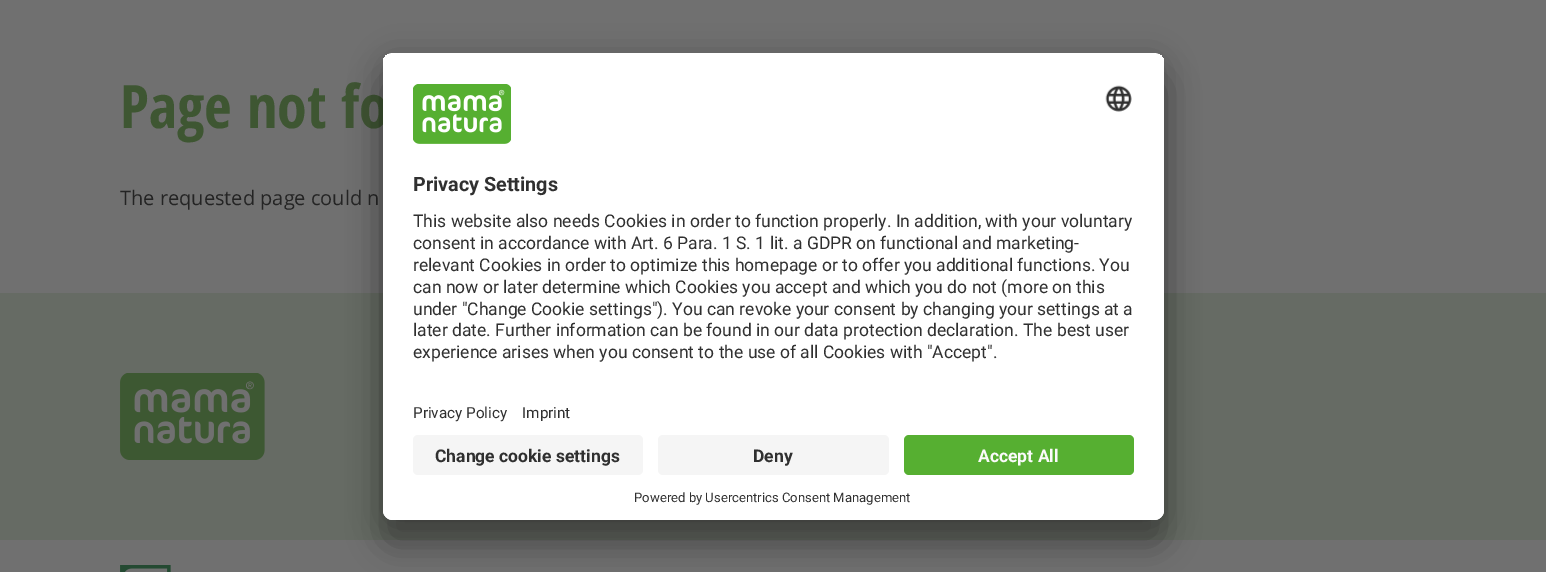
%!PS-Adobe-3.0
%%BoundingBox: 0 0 1546 572
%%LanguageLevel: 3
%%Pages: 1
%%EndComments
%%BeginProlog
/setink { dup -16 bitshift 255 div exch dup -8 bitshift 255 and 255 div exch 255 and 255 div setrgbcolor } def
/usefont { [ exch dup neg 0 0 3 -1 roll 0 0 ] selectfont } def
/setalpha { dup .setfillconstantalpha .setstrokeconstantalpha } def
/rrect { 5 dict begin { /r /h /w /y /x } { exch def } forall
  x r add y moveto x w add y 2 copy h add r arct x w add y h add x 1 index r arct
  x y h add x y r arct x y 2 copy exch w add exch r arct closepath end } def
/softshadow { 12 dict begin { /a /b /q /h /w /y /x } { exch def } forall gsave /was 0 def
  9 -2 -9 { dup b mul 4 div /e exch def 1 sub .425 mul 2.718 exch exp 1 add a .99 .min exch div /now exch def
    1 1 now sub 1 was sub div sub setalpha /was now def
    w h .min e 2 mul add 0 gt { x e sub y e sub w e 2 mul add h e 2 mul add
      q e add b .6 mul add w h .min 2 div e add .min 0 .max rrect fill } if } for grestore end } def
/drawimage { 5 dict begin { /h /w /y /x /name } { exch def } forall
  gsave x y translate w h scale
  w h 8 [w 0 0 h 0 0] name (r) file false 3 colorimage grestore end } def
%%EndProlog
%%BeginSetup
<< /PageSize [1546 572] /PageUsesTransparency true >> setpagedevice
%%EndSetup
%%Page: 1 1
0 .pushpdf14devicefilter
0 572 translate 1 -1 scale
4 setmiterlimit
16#707070 setink
0 0 1546 572 rectfill
/OpenSansCondensed-Bold 60 usefont
16#3E5632 setink
120 128 moveto (Page not fo) show
/OpenSans-Regular 20 usefont
16#242424 setink
120 205 moveto (The requested page could n) show
16#666B64 setink
0 293 1546 247 rectfill
(img1.raw) 120 373 145 87 drawimage
(img2.raw) 120 565 51 7 drawimage
16#000000 setink
383 78 781 467 10 17.5 0.3 softshadow
383 59 781 467 10 16 0.22 softshadow
16#FFFFFF setink
383 53 781 467 10 rrect fill
gsave
383 53 781 467 10 rrect clip newpath
393 53 moveto 1154 53 lineto 1159.5 53 1164 57.5 1164 63 curveto 1164 425 lineto 383 425 lineto 383 63 lineto 383 57.5 387.5 53 393 53 curveto closepath clip newpath
383 54 781 371 rectfill
grestore
(img3.raw) 413 84 98 60 drawimage
(img4.raw) 1105 85 27 27 drawimage
/Roboto-Bold 19.75 usefont
16#303030 setink
413 191 moveto (Privacy Settings) show
/Roboto-Regular 17.5 usefont
[
    [(This website also needs Cookies in order to function properly. In addition, with your voluntary) 413 227]
    [(consent in accordance with Art. 6 Para. 1 S. 1 lit. a GDPR on functional and marketing-) 413 249]
    [(relevant Cookies in order to optimize this homepage or to offer you additional functions. You) 413 271]
    [(can now or later determine which Cookies you accept and which you do not \(more on this) 413 293]
    [(under "Change Cookie settings"\). You can revoke your consent by changing your settings at a) 413 315]
    [(later date. Further information can be found in our data protection declaration. The best user) 413 336]
    [(experience arises when you consent to the use of all Cookies with "Accept".) 413 358]
] { aload pop moveto show } forall
/Roboto-Regular 15.25 usefont
413 418 moveto (Privacy Policy) show
522 418 moveto (Imprint) show
16#FFFFFF setink
383 425 moveto 1164 425 lineto 1164 510 lineto 1164 515.5 1159.5 520 1154 520 curveto 393 520 lineto 387.5 520 383 515.5 383 510 curveto closepath fill
16#F5F5F5 setink
413 435 230 40 5 rrect fill
/Roboto-Bold 17.5 usefont
16#303030 setink
435 462 moveto (Change cookie settings) show
16#F5F5F5 setink
658 435 231 40 5 rrect fill
16#303030 setink
753 462 moveto (Deny) show
16#56AF31 setink
904 435 230 40 5 rrect fill
16#FAFAFA setink
978 462 moveto (Accept All) show
/Roboto-Regular 13.1 usefont
16#303030 setink
634 502 moveto (Powered by Usercentrics Consent Management) show
.poppdf14devicefilter showpage
%%EOF
